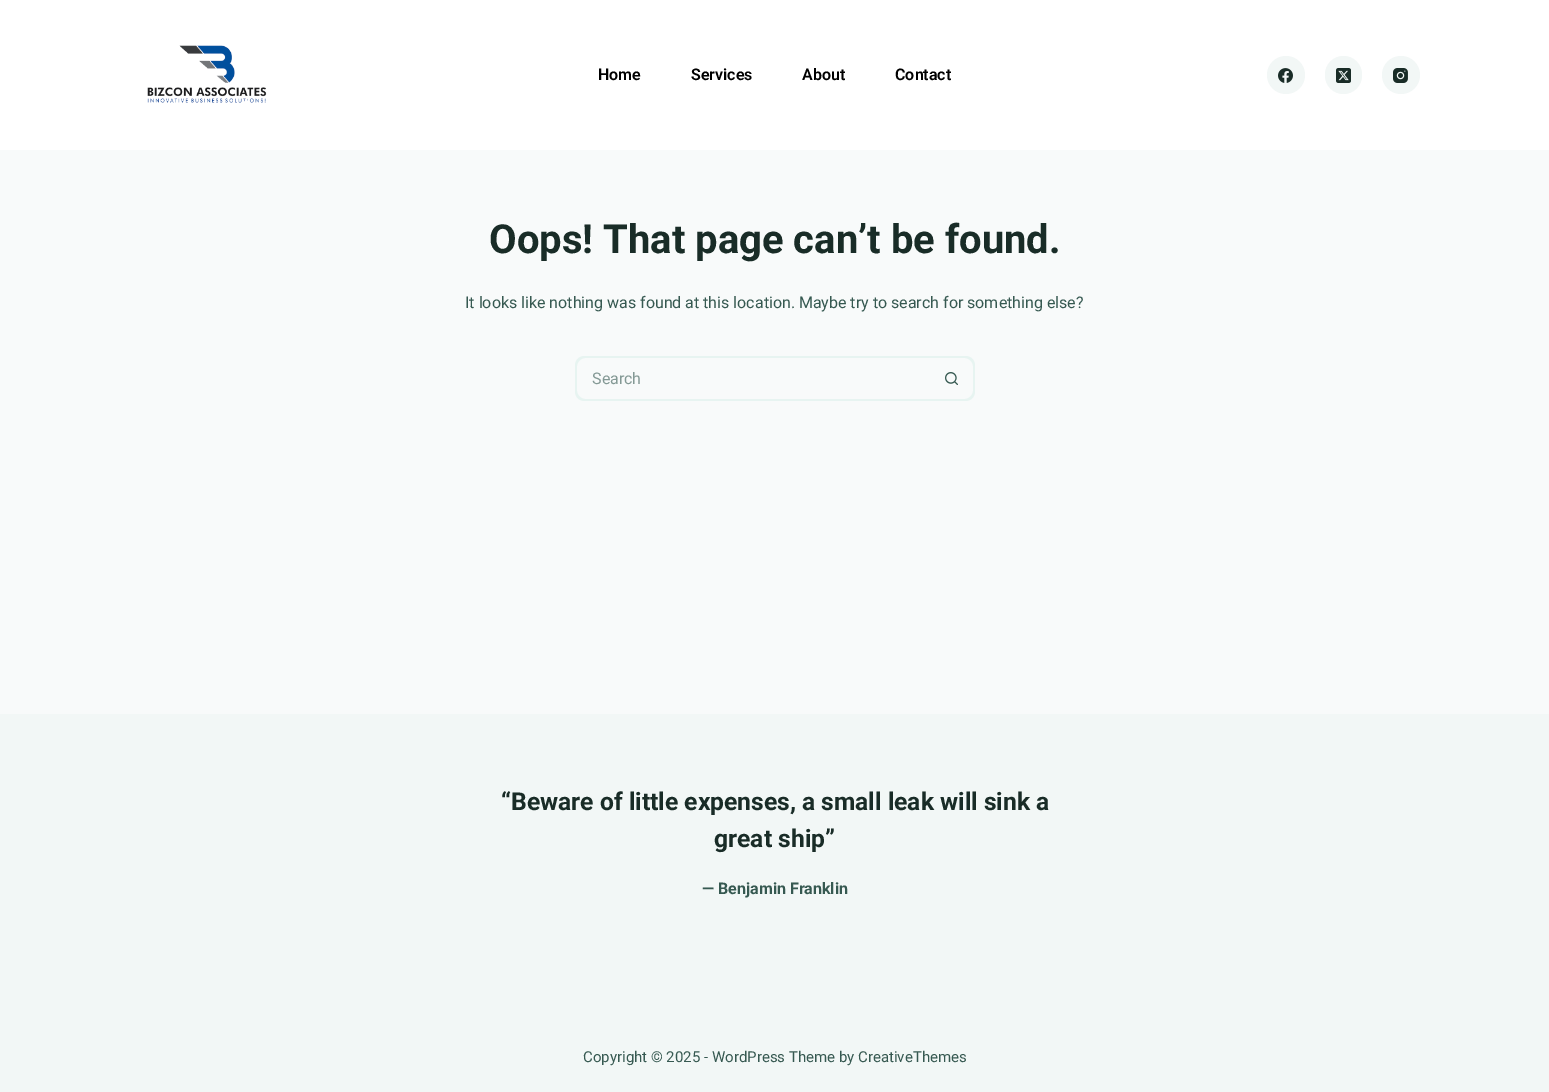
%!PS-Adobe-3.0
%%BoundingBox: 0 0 1549 1092
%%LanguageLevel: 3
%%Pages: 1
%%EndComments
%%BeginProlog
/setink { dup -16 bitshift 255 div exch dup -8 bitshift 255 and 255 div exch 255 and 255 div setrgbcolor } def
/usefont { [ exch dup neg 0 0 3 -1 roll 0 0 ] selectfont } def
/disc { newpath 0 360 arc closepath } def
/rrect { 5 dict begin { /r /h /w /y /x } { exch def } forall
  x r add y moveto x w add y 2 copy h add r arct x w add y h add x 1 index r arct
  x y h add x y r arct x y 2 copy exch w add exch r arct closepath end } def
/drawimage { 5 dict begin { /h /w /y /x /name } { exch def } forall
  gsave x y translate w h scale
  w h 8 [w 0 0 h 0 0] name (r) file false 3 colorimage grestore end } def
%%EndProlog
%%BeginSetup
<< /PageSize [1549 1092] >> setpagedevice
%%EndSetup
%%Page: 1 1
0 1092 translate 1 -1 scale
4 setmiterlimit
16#F8FAFA setink
0 0 1549 1092 rectfill
16#FFFFFF setink
0 0 1549 150 rectfill
(img1.raw) 147 45 120 58 drawimage
/Roboto-SemiBold 16 usefont
16#000000 setink
[
    [(Home) 598 80]
    [(Services) 691 80]
    [(About) 802 80]
    [(Contact) 895 80]
] { aload pop moveto show } forall
16#F2F7F6 setink
1286 75 19 disc fill
(img2.raw) 1278 68 15 15 drawimage
1325 56 37 38 18.5 rrect fill
(img3.raw) 1336 68 15 15 drawimage
1401 75 19 disc fill
(img4.raw) 1393 68 15 15 drawimage
/Roboto-Bold 40 usefont
16#192C27 setink
489 253 moveto (Oops! That page can’t be found.) show
/Roboto-Regular 16 usefont
16#365951 setink
465 308 moveto (It looks like nothing was found at this location. Maybe try to search for something else?) show
16#E7F4F1 setink
585 356 moveto 930 356 lineto 930 401 lineto 585 401 lineto 579 401 575 397 575 391 curveto 575 366 lineto 575 360 579 356 585 356 curveto closepath 585 358 moveto 930 358 lineto 930 399 lineto 585 399 lineto 581 399 577 395 577 391 curveto 577 366 lineto 577 362 581 358 585 358 curveto closepath eofill
16#849995 setink
592 384 moveto (Search) show
16#E7F4F1 setink
930 356 moveto 965 356 lineto 971 356 975 360 975 366 curveto 975 391 lineto 975 397 971 401 965 401 curveto 930 401 lineto closepath 930 358 moveto 965 358 lineto 969 358 973 362 973 366 curveto 973 391 lineto 973 395 969 399 965 399 curveto 930 399 lineto closepath eofill
(img5.raw) 945 372 13 13 drawimage
16#F2F7F6 setink
0 714 1549 378 rectfill
/Roboto-Bold 24.65 usefont
16#192C27 setink
501 810 moveto (“Beware of little expenses, a small leak will sink a) show
714 847 moveto (great ship”) show
/Roboto-Bold 16 usefont
16#365951 setink
702 894 moveto (— Benjamin Franklin) show
/Roboto-Regular 15 usefont
583 1062 moveto (Copyright © 2025 - WordPress Theme by CreativeThemes) show
showpage
%%EOF
